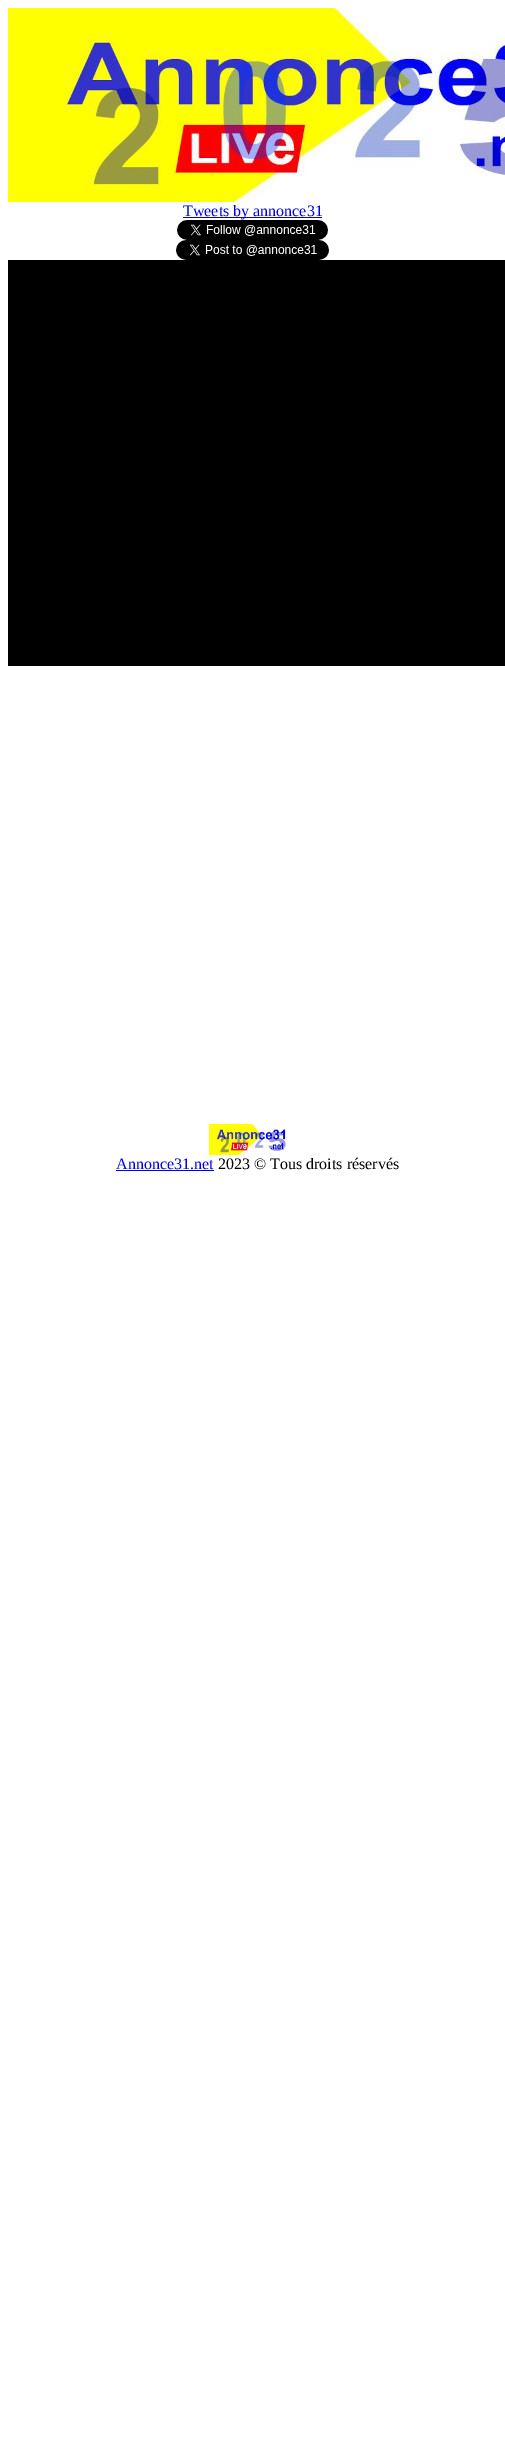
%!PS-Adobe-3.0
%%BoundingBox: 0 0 505 2464
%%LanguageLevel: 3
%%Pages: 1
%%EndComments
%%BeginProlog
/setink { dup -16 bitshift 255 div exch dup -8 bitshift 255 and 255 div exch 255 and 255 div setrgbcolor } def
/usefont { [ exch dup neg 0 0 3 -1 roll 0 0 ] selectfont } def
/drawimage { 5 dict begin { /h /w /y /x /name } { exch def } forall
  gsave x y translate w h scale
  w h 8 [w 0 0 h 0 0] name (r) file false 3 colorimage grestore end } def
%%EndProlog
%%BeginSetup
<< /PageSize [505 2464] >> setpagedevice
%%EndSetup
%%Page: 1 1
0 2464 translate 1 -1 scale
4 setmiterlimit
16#FFFFFF setink
0 0 505 2464 rectfill
(img1.raw) 8 8 497 194 drawimage
16#0000EE setink
183 217 139 1 rectfill
/LiberationSerif-Regular 16 usefont
183 216 moveto (Tweets by annonce31) show
(img2.raw) 177 220 151 20 drawimage
(img3.raw) 176 240 153 20 drawimage
16#000000 setink
8 260 497 406 rectfill
(img4.raw) 209 1124 77 31 drawimage
16#0000EE setink
116 1169 moveto (Annonce31.net) show
116 1170 98 1 rectfill
16#000000 setink
218 1169 moveto (2023 © Tous droits réservés) show
showpage
%%EOF
